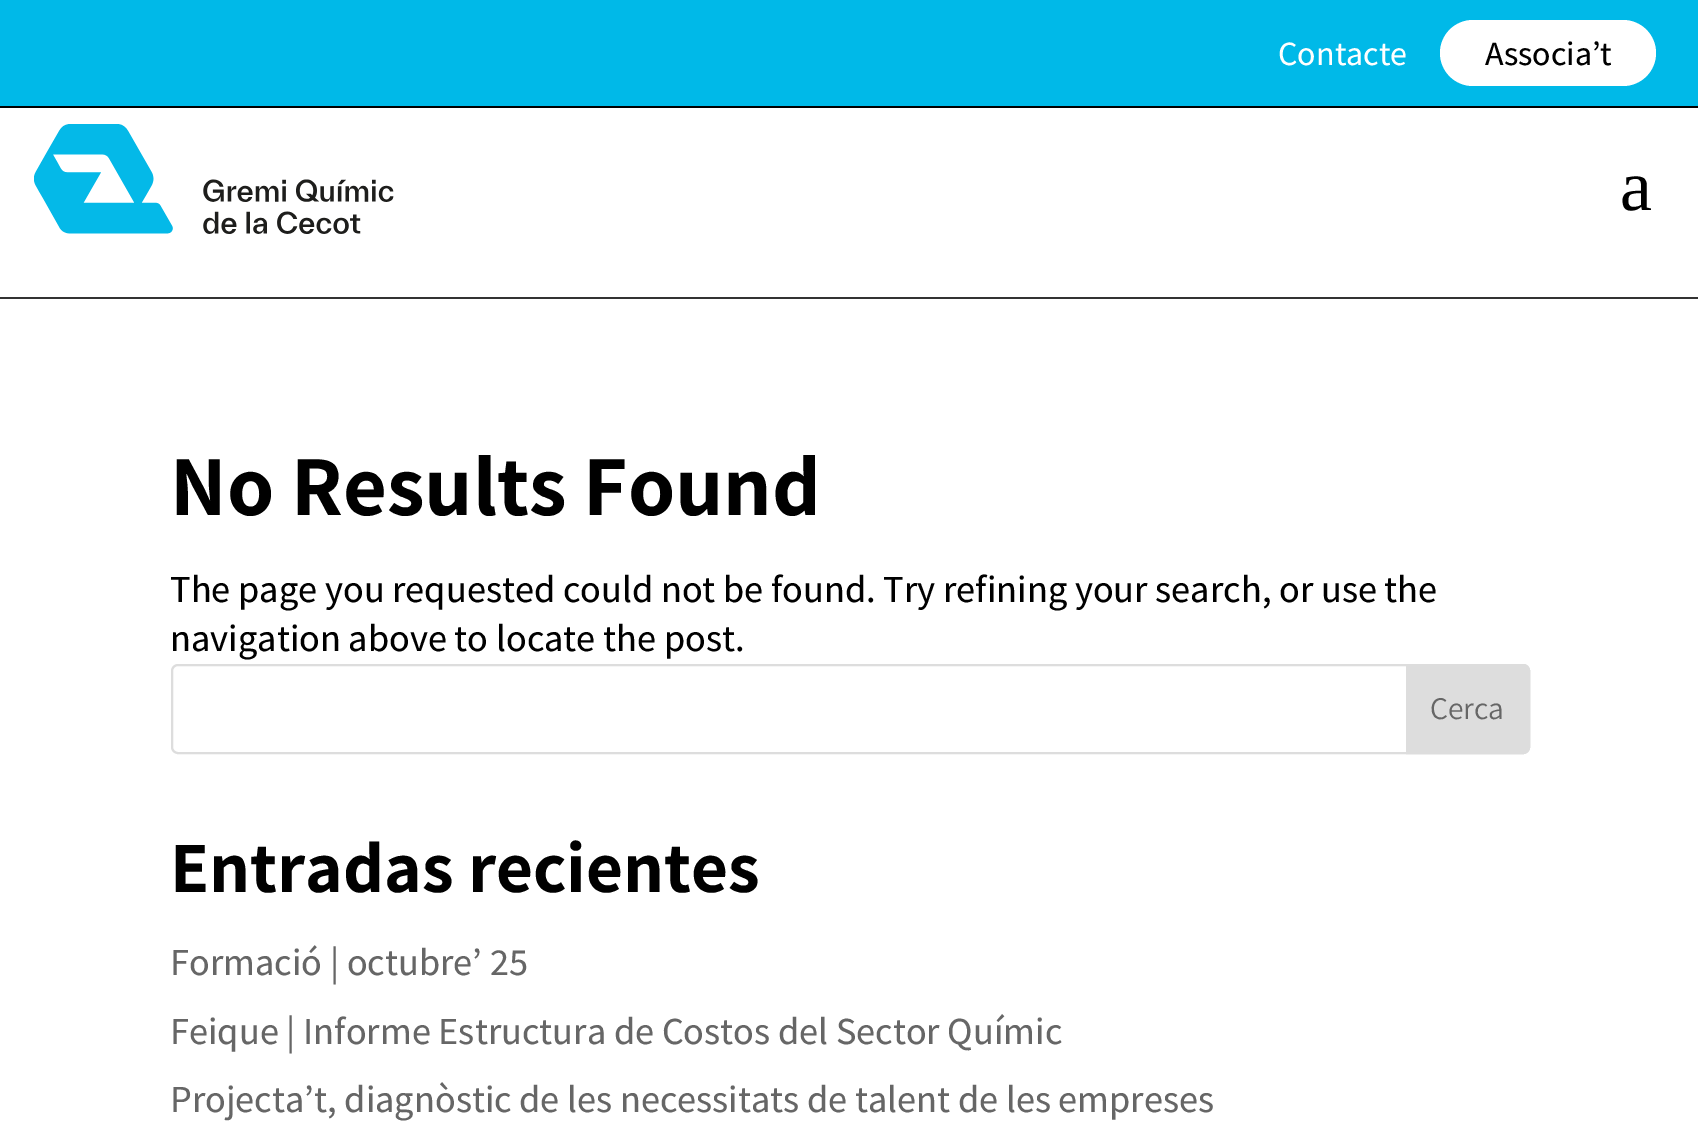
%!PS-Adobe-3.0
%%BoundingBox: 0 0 1698 1127
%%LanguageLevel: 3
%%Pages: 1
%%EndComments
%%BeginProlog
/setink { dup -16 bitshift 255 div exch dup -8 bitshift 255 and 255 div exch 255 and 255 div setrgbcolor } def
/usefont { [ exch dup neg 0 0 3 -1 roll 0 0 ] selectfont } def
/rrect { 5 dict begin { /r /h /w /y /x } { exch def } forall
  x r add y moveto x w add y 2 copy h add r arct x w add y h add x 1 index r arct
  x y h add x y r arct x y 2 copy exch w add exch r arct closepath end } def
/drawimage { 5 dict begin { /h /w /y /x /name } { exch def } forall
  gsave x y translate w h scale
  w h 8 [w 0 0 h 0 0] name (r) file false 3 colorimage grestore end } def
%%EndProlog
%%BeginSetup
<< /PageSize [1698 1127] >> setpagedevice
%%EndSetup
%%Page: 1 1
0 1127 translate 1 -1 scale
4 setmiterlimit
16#FFFFFF setink
0 0 1698 1127 rectfill
16#00B9E8 setink
0 0 1698 106 rectfill
/Assistant-Medium 34 usefont
16#FFFFFF setink
1278 65 moveto (Contacte) show
1440 20 216 66 33 rrect fill
16#000000 setink
1485 65 moveto (Associa’t) show
0 106 1698 2 rectfill
16#333333 setink
0 297 1698 2 rectfill
(img1.raw) 34 124 360 110 drawimage
/LiberationSerif-Regular 72 usefont
16#000000 setink
1620 210 moveto (a) show
/Assistant-Bold 85.5 usefont
170 515 moveto (No Results Found) show
/Assistant-Medium 38.25 usefont
170 602 moveto (The page you requested could not be found. Try refining your search, or use the) show
170 651 moveto (navigation above to locate the post.) show
16#DDDDDD setink
2 setlinewidth
172 665 1357 88 6 rrect stroke
1407 665 moveto 1523 665 lineto 1526.5 665 1529 667.5 1529 671 curveto 1529 747 lineto 1529 750.5 1526.5 753 1523 753 curveto 1407 753 lineto closepath gsave fill grestore
stroke
/Assistant-Regular 31.5 usefont
16#666666 setink
1430 719 moveto (Cerca) show
/Assistant-Bold 72 usefont
16#000000 setink
170 892 moveto (Entradas recientes) show
/Assistant-Medium 38.25 usefont
16#666666 setink
[
    [(Formació | octubre’ 25) 170 975]
    [(Feique | Informe Estructura de Costos del Sector Químic) 170 1044]
    [(Projecta’t, diagnòstic de les necessitats de talent de les empreses) 170 1112]
] { aload pop moveto show } forall
showpage
%%EOF
